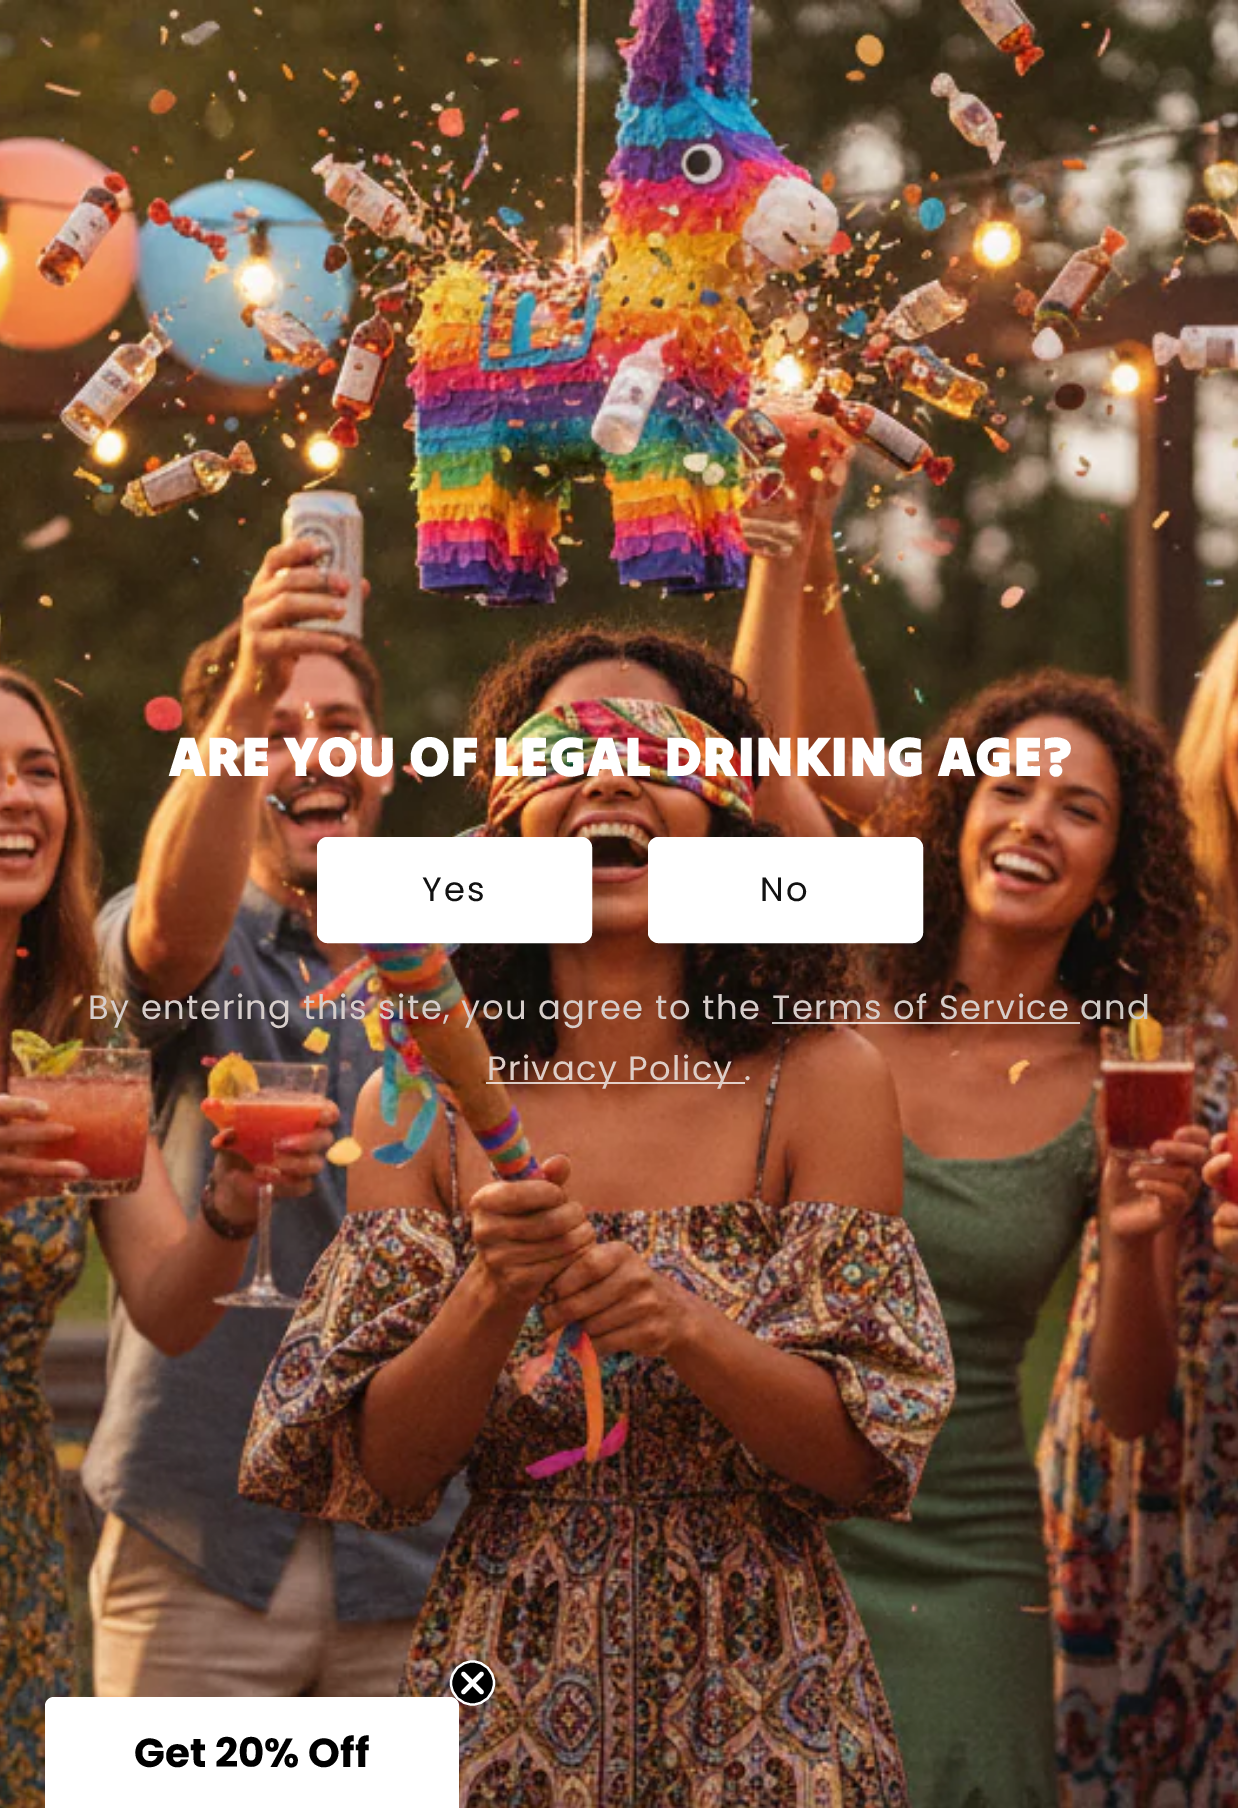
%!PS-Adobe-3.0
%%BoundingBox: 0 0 1238 1808
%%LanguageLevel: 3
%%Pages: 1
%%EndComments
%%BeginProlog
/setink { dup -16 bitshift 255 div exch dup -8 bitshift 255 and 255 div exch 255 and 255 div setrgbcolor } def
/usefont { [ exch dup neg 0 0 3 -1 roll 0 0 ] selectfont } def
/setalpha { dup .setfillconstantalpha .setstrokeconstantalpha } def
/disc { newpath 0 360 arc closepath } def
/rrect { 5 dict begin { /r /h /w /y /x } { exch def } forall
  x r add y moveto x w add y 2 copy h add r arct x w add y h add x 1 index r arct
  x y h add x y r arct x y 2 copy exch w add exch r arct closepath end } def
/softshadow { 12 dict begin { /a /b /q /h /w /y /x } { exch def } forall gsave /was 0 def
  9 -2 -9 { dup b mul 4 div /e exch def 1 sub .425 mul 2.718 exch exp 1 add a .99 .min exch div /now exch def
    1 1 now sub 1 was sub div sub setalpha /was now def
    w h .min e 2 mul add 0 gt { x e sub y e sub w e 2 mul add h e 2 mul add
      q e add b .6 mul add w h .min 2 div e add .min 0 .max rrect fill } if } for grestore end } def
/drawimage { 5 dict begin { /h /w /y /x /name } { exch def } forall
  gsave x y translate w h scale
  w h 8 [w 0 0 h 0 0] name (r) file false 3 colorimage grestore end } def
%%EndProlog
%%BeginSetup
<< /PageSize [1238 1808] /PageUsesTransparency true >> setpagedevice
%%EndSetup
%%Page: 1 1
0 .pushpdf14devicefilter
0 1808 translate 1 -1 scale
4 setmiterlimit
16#FFFFFF setink
0 0 1238 1808 rectfill
(img1.raw) 0 0 1238 1808 drawimage
/TiltWarp-Bold 54 usefont
169 776 moveto 1.35 0 (ARE YOU OF LEGAL DRINKING AGE?) ashow
16#121212 setink
335 846 275 106 11 11 0.25 softshadow
16#FFFFFF setink
317 837 275 106 11 rrect fill
2 setlinewidth
318 838 273 104 10 rrect stroke
/Poppins-Regular 33.75 usefont
16#121212 setink
422 901 moveto 2 0 (Yes) ashow
666 846 275 106 11 11 0.25 softshadow
16#FFFFFF setink
648 837 275 106 11 rrect fill
649 838 273 104 10 rrect stroke
16#121212 setink
760 901 moveto 2 0 (No) ashow
16#D6CDCA setink
88 1019 moveto 1.35 0 (By entering this site, you agree to the) ashow
772 1019 moveto 1.35 0 (Terms of Service) ashow
0.75 setalpha
16#FFFFFF setink
772 1022 308 2 rectfill
1 setalpha
16#CEC8C3 setink
1080 1019 moveto 1.35 0 (and) ashow
0.75 setalpha
16#FFFFFF setink
486 1082 259 2 rectfill
1 setalpha
16#DECEC7 setink
487 1080 moveto 1.35 0 (Privacy Policy) ashow
744 1080 moveto 1.35 0 (.) ashow
16#FFFFFF setink
54 1697 moveto 450 1697 lineto 455 1697 459 1701 459 1706 curveto 459 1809 lineto 45 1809 lineto 45 1706 lineto 45 1701 49 1697 54 1697 curveto closepath fill
16#000000 setink
472.5 1683 21.5 disc gsave fill grestore
16#FFFFFF setink
2.2 setlinewidth
stroke
4.5 setlinewidth
1 setlinecap
1 setlinejoin
463.5 1674 moveto 481.5 1692 lineto 463.5 1692 moveto 481.5 1674 lineto closepath stroke
/Poppins-Bold 40.5 usefont
16#000000 setink
134 1767 moveto (Get 20% Off) show
.poppdf14devicefilter showpage
%%EOF
